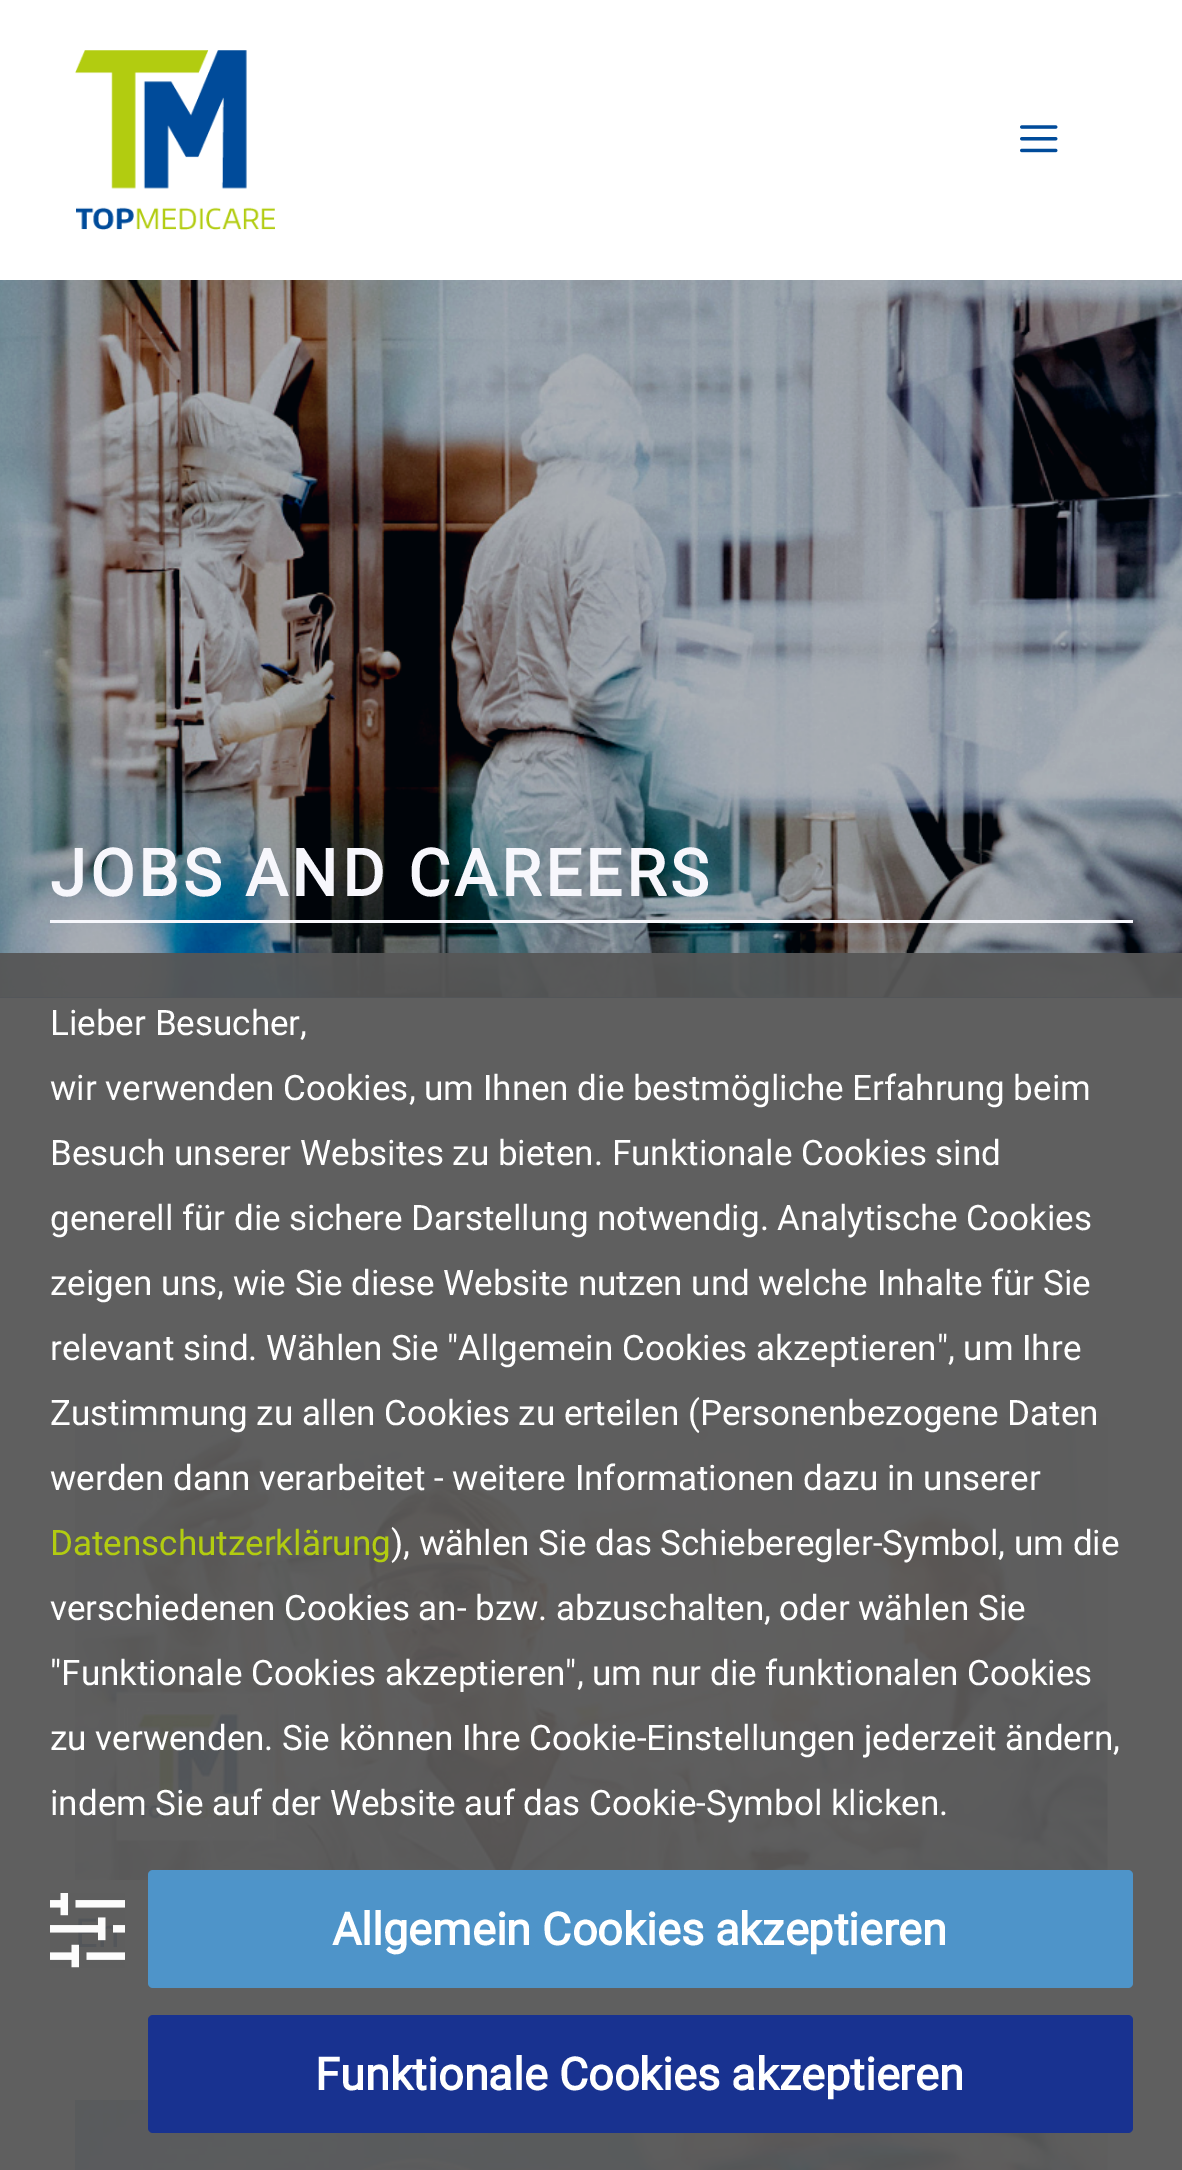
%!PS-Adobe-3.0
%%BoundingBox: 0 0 1182 2170
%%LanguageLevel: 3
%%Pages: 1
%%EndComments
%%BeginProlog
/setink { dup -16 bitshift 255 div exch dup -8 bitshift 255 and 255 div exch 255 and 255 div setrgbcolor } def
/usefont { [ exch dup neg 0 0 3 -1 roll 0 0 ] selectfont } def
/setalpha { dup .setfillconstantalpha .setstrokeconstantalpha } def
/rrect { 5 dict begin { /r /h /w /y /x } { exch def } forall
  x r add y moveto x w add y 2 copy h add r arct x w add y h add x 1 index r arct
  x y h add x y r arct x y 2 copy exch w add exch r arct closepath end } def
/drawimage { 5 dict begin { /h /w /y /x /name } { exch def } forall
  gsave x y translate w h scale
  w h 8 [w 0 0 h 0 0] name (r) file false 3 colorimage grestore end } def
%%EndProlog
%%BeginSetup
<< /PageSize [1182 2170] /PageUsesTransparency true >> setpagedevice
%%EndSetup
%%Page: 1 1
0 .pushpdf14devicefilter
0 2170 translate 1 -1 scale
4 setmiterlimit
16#FFFFFF setink
0 0 1182 2170 rectfill
(img1.raw) 75 50 200 180 drawimage
(img2.raw) 1020 125 38 28 drawimage
16#004B9A setink
0 280 1182 718 rectfill
(img3.raw) 0 280 1182 718 drawimage
16#F7F7FC setink
50 920 1083 3 rectfill
/Roboto-Bold 65 usefont
50 896 moveto 3.9 0 (JOBS AND CAREERS) ashow
(img5.raw) 75 1417 1033 463 drawimage
(img6.raw) 75 2100 1033 70 drawimage
0.95 setalpha
16#565656 setink
0 953 1182 1217 rectfill
/Roboto-Regular 35 usefont
1 setalpha
16#FFFFFF setink
[
    [(Lieber Besucher,) 50 1035]
    [(wir verwenden Cookies, um Ihnen die bestmögliche Erfahrung beim) 50 1100]
    [(Besuch unserer Websites zu bieten. Funktionale Cookies sind) 50 1165]
    [(generell für die sichere Darstellung notwendig. Analytische Cookies) 50 1230]
    [(zeigen uns, wie Sie diese Website nutzen und welche Inhalte für Sie) 50 1295]
    [(relevant sind. Wählen Sie "Allgemein Cookies akzeptieren", um Ihre) 50 1360]
    [(Zustimmung zu allen Cookies zu erteilen \(Personenbezogene Daten) 50 1425]
    [(werden dann verarbeitet - weitere Informationen dazu in unserer) 50 1490]
] { aload pop moveto show } forall
16#B2CC10 setink
50 1555 moveto (Datenschutzerklärung) show
16#FFFFFF setink
[
    [(\), wählen Sie das Schieberegler-Symbol, um die) 391 1555]
    [(verschiedenen Cookies an- bzw. abzuschalten, oder wählen Sie) 50 1620]
    [("Funktionale Cookies akzeptieren", um nur die funktionalen Cookies) 50 1685]
    [(zu verwenden. Sie können Ihre Cookie-Einstellungen jederzeit ändern,) 50 1750]
    [(indem Sie auf der Website auf das Cookie-Symbol klicken.) 50 1815]
] { aload pop moveto show } forall
(img4.raw) 50 1893 75 75 drawimage
16#4E94C9 setink
148 1870 985 118 5 rrect fill
/Roboto-Bold 45 usefont
16#FFFFFF setink
332 1945 moveto (Allgemein Cookies akzeptieren) show
16#183290 setink
148 2015 985 118 5 rrect fill
16#FFFFFF setink
315 2090 moveto (Funktionale Cookies akzeptieren) show
.poppdf14devicefilter showpage
%%EOF
